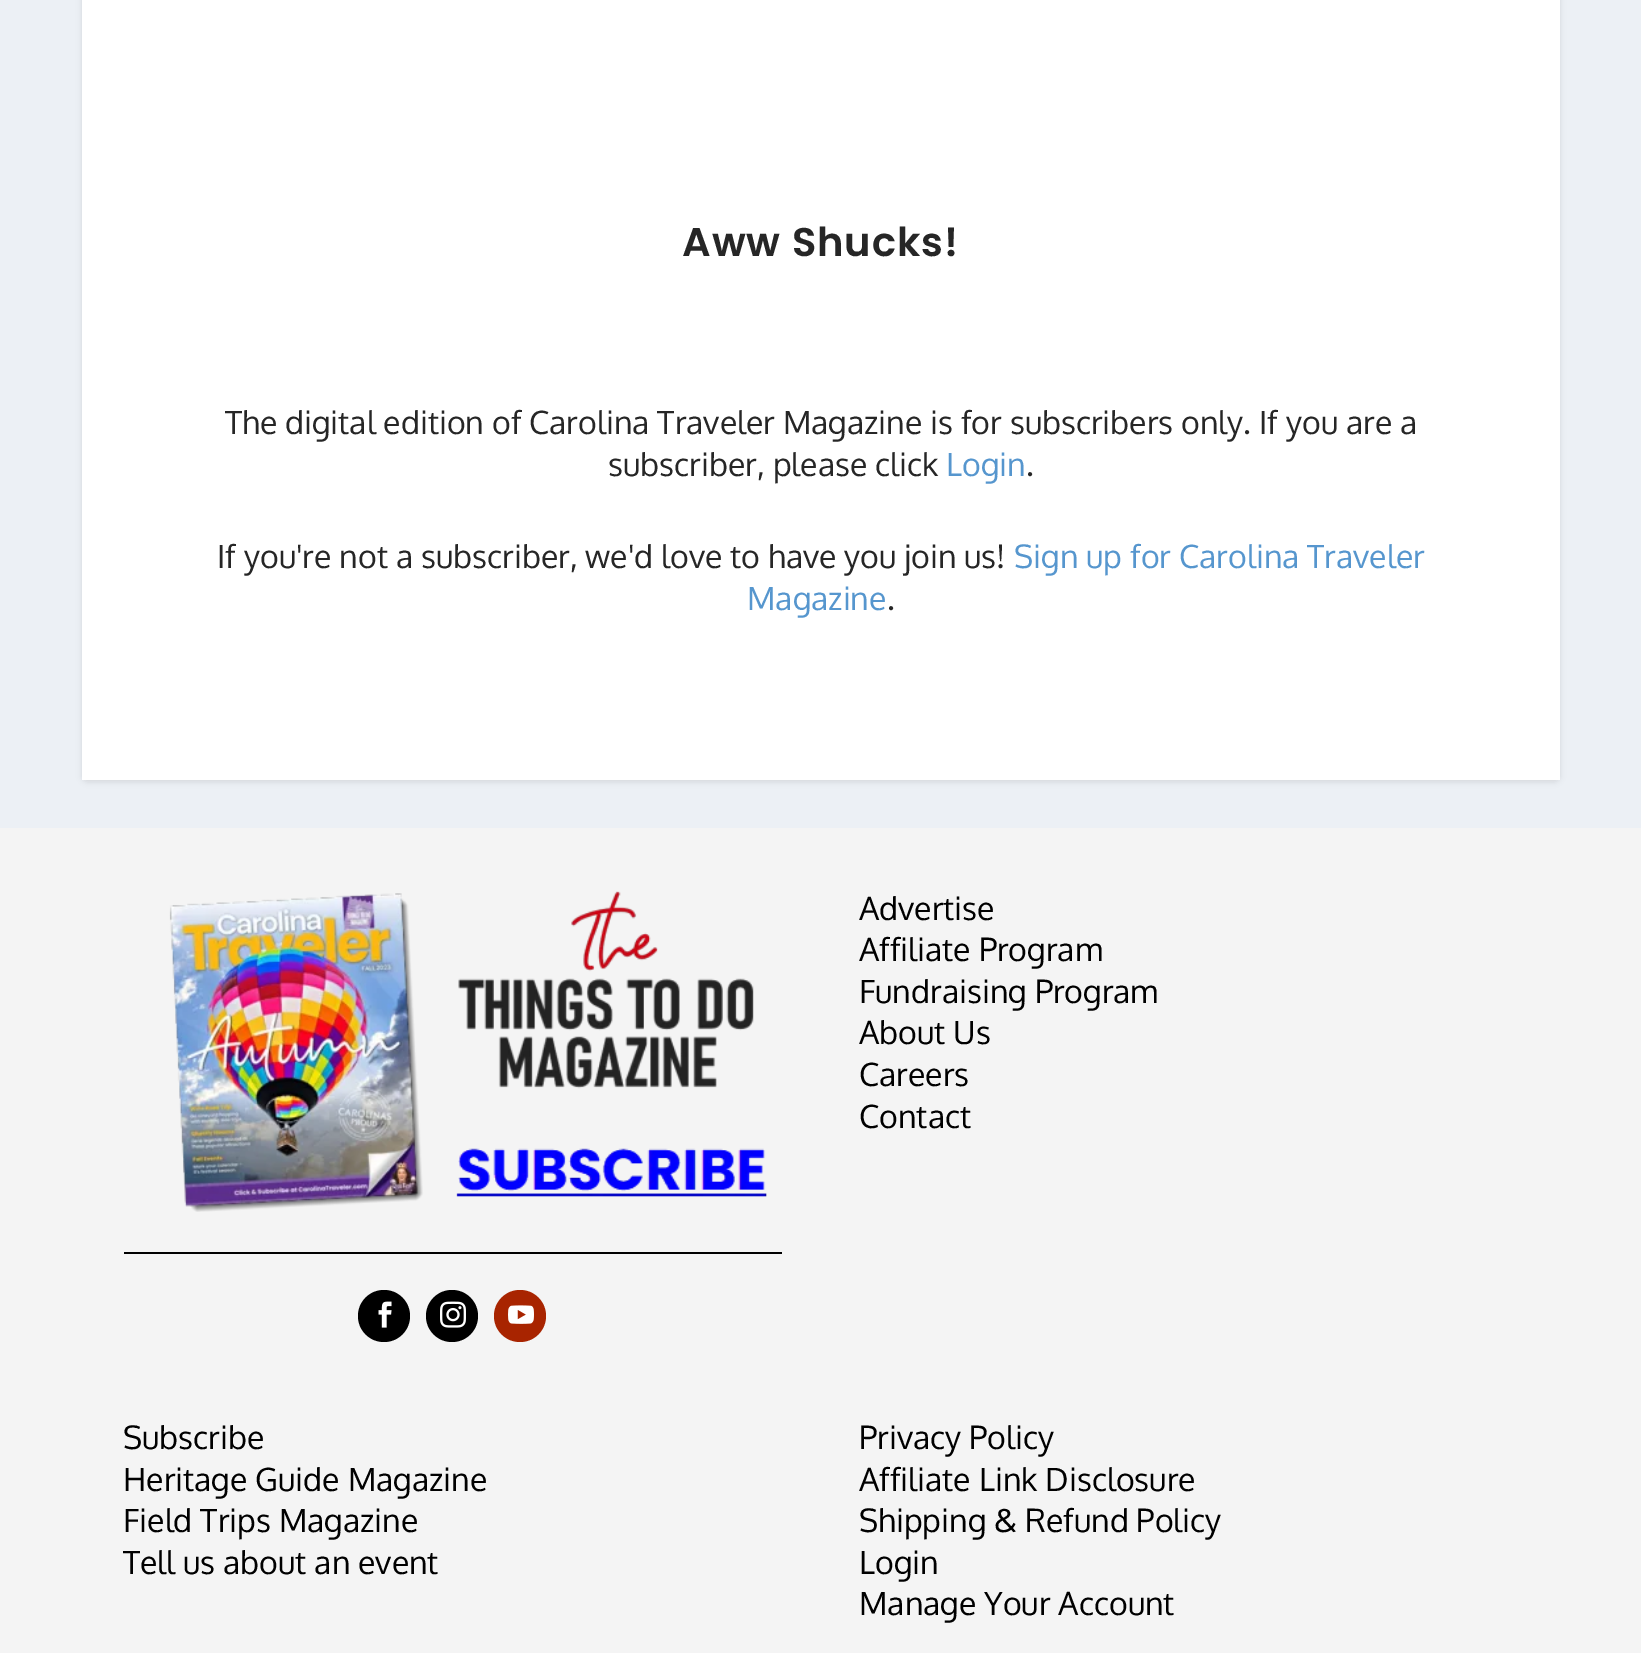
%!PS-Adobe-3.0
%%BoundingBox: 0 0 1641 1653
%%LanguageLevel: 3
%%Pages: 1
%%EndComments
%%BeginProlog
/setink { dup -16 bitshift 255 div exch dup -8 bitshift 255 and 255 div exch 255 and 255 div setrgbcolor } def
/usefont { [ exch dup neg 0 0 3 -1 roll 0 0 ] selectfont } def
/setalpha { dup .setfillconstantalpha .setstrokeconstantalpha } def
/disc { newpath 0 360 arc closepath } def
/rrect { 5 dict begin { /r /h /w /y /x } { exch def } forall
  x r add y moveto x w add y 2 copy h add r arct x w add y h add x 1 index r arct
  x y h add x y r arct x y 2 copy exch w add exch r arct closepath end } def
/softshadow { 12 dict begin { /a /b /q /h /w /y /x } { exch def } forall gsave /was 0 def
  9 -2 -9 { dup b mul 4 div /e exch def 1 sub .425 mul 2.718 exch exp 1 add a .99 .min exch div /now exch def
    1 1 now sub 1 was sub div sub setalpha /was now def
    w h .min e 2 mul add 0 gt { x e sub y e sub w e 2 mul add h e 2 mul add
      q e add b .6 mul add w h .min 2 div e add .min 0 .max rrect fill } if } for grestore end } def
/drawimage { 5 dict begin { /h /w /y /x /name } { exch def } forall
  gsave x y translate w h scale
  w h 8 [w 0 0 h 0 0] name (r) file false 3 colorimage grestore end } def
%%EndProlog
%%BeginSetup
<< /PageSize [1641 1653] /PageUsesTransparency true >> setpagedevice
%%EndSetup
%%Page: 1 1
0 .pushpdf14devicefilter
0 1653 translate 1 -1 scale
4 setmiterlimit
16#ECF0F5 setink
0 0 1641 1653 rectfill
16#000000 setink
82 -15 1478 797 6 3 0.1 softshadow
16#FFFFFF setink
82 0 1478 780 rectfill
/Poppins-SemiBold 40 usefont
16#262626 setink
682 256 moveto 1 0 (Aww Shucks!) ashow
/Oxygen-Regular 32 usefont
225 434 moveto (The digital edition of Carolina Traveler Magazine is for subscribers only. If you are a) show
608 476 moveto (subscriber, please click) show
16#5696CE setink
946 476 moveto (Login) show
16#262626 setink
1026 476 moveto (.) show
217 568 moveto (If you're not a subscriber, we'd love to have you join us!) show
16#5696CE setink
1014 568 moveto (Sign up for Carolina Traveler) show
747 610 moveto (Magazine) show
16#262626 setink
887 610 moveto (.) show
16#F4F4F4 setink
0 828 1641 825 rectfill
(img1.raw) 169 891 598 321 drawimage
16#000000 setink
124 1252 658 2 rectfill
384 1316 26 disc fill
(img2.raw) 378 1301 14 27 drawimage
452 1316 26 disc fill
(img3.raw) 440 1301 26 27 drawimage
16#A82400 setink
520 1316 26 disc fill
(img4.raw) 508 1305 26 19 drawimage
16#000000 setink
[
    [(Advertise) 859 920]
    [(Affiliate Program) 859 961]
    [(Fundraising Program) 859 1003]
    [(About Us) 859 1044]
    [(Careers) 859 1086]
    [(Contact) 859 1128]
    [(Subscribe) 123 1449]
    [(Heritage Guide Magazine) 123 1491]
    [(Field Trips Magazine) 123 1532]
    [(Tell us about an event) 123 1574]
    [(Privacy Policy) 859 1449]
    [(Affiliate Link Disclosure) 859 1491]
    [(Shipping & Refund Policy) 859 1532]
    [(Login) 859 1574]
    [(Manage Your Account) 859 1615]
] { aload pop moveto show } forall
.poppdf14devicefilter showpage
%%EOF
